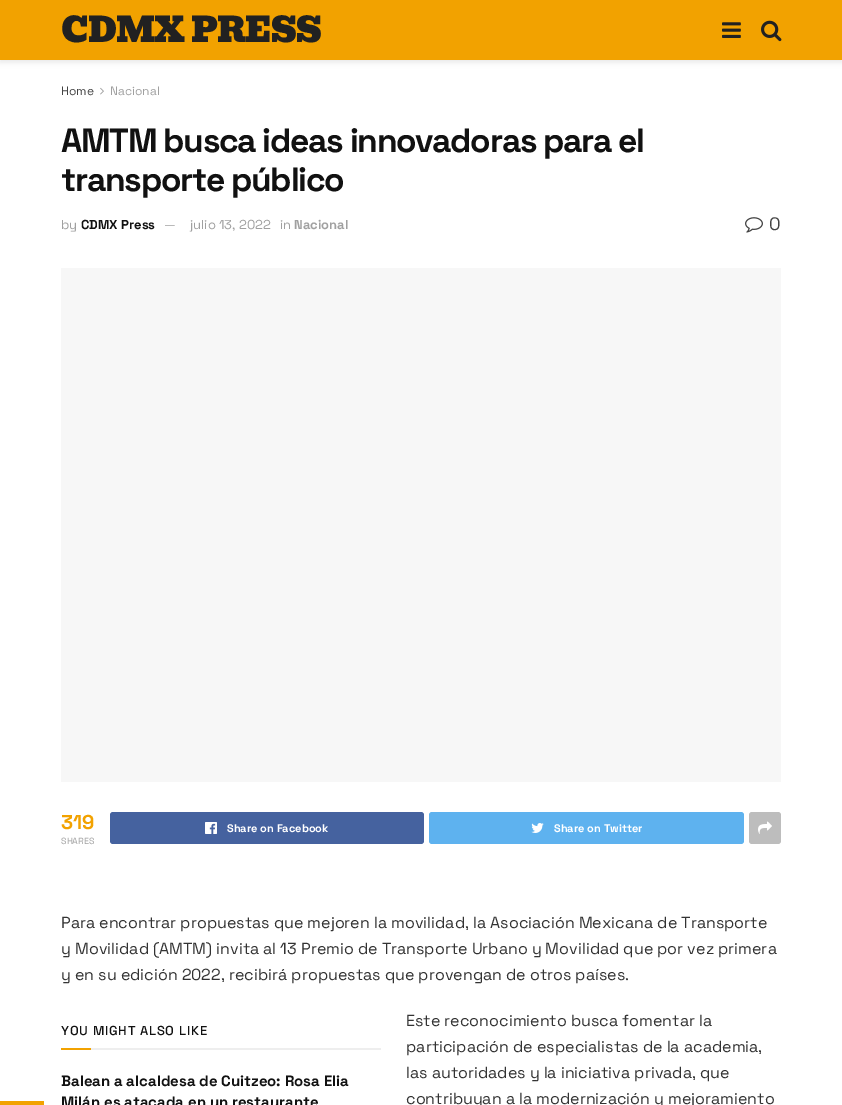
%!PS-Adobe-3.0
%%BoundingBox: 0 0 842 1105
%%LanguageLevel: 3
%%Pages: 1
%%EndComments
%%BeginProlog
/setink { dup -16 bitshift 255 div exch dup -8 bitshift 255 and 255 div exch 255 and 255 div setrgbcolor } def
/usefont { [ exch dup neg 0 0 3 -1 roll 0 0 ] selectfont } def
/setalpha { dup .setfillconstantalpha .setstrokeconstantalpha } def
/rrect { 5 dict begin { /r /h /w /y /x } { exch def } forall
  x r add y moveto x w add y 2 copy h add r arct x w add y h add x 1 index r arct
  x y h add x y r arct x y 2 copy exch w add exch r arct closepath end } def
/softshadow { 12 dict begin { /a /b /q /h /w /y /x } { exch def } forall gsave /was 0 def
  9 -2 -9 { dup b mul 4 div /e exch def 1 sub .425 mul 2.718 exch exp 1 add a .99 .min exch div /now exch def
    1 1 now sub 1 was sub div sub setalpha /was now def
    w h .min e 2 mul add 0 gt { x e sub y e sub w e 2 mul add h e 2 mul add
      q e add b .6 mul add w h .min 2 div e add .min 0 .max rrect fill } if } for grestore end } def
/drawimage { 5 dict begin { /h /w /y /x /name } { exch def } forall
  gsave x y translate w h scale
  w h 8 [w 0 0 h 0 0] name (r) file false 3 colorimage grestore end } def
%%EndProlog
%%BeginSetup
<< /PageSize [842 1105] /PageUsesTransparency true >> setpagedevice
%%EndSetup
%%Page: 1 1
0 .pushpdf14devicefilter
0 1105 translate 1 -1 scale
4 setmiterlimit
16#FFFFFF setink
0 0 842 1105 rectfill
16#F2A200 setink
0 1101 44 4 rectfill
16#000000 setink
0 2 842 60 0 3 0.1 softshadow
16#F2A200 setink
0 0 842 60 rectfill
/Bevan-Regular 34 usefont
16#212121 setink
61 42 moveto -0.75 0 (CDMX PRESS) ashow
(img1.raw) 722 22 19 16 drawimage
(img2.raw) 761 20 21 22 drawimage
/SpaceGrotesk-Regular 12 usefont
16#444444 setink
61 95 moveto (Home) show
(img3.raw) 100 87 4 8 drawimage
16#A0A0A0 setink
110 95 moveto (Nacional) show
/SpaceGrotesk-Bold 33.6 usefont
16#111111 setink
61 152 moveto -1.35 0 (AMTM busca ideas innovadoras para el) ashow
61 191 moveto -1.35 0 (transporte público) ashow
/SpaceGrotesk-Regular 13 usefont
16#A0A0A0 setink
61 229 moveto (by) show
/SpaceGrotesk-Bold 13 usefont
16#111111 setink
81 229 moveto (CDMX Press) show
/SpaceGrotesk-Regular 13 usefont
16#A0A0A0 setink
[
    [(—) 164 229]
    [(julio 13, 2022) 190 229]
    [(in) 280 229]
] { aload pop moveto show } forall
/SpaceGrotesk-Bold 13 usefont
294 229 moveto (Nacional) show
(img4.raw) 745 217 18 16 drawimage
/SpaceGrotesk-Regular 18 usefont
16#444444 setink
769 230 moveto (0) show
16#F7F7F7 setink
61 268 720 514 rectfill
/SpaceGrotesk-Bold 20 usefont
16#F2A200 setink
61 829 moveto (319) show
/SpaceGrotesk-Regular 9 usefont
16#A0A0A0 setink
61 844 moveto (SHARES) show
16#45629F setink
110 812 314 32 3 rrect fill
(img5.raw) 205 822 12 12 drawimage
/SpaceGrotesk-Bold 11 usefont
16#FFFFFF setink
227 832 moveto (Share on Facebook) show
16#5EB2EF setink
429 812 315 32 3 rrect fill
(img6.raw) 531 823 13 10 drawimage
16#FFFFFF setink
554 832 moveto (Share on Twitter) show
16#BDBDBD setink
749 812 32 32 3 rrect fill
(img7.raw) 758 821 14 13 drawimage
/SpaceGrotesk-Regular 16 usefont
16#333333 setink
[
    [(Para encontrar propuestas que mejoren la movilidad, la Asociación Mexicana de Transporte) 61 928]
    [(y Movilidad \(AMTM\) invita al 13 Premio de Transporte Urbano y Movilidad que por vez primera) 61 954]
    [(y en su edición 2022, recibirá propuestas que provengan de otros países.) 61 980]
] { aload pop moveto show } forall
16#EEEEEE setink
91 1048 290 2 rectfill
/SpaceGrotesk-Medium 13 usefont
16#111111 setink
61 1035 moveto 0.75 0 (YOU MIGHT ALSO LIKE) ashow
16#F2A200 setink
61 1048 30 2 rectfill
/SpaceGrotesk-Bold 15 usefont
16#111111 setink
61 1086 moveto (Balean a alcaldesa de Cuitzeo: Rosa Elia) show
61 1107 moveto (Milán es atacada en un restaurante) show
/SpaceGrotesk-Regular 16 usefont
16#333333 setink
[
    [(Este reconocimiento busca fomentar la) 406 1026]
    [(participación de especialistas de la academia,) 406 1052]
    [(las autoridades y la iniciativa privada, que) 406 1078]
    [(contribuyan a la modernización y mejoramiento) 406 1104]
] { aload pop moveto show } forall
.poppdf14devicefilter showpage
%%EOF
